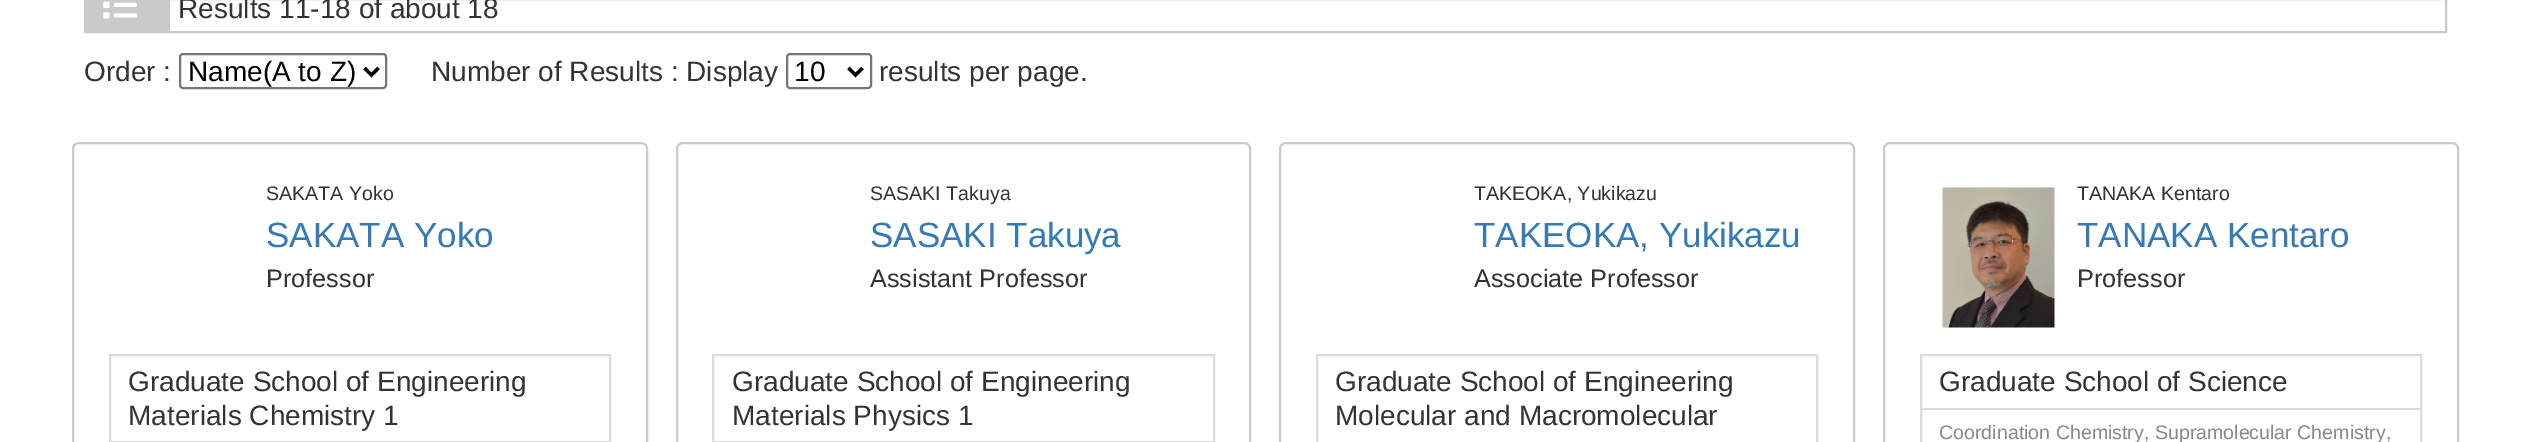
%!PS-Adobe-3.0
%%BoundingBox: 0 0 2530 442
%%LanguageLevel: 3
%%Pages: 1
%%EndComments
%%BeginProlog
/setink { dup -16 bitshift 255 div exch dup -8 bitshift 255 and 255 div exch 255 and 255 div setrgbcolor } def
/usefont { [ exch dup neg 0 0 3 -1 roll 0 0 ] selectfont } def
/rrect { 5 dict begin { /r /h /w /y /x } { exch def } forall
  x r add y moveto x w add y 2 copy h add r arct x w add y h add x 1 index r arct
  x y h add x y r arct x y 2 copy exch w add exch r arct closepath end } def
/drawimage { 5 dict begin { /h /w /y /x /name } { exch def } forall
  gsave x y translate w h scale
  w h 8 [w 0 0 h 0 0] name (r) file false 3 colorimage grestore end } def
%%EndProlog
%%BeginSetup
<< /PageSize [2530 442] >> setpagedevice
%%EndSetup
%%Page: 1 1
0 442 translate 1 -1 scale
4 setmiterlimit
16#FFFFFF setink
0 0 2530 442 rectfill
16#CACACA setink
2 setlinewidth
85 -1 2361 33 rectstroke
86 0 84 31 rectfill
(img1.raw) 103 1 34 18 drawimage
/LiberationSans-Regular 28 usefont
16#333333 setink
178 18 moveto (Results 11-18 of about 18) show
84 81 moveto (Order :) show
16#767676 setink
180 54 206 34 3 rrect stroke
16#000000 setink
3.5 setlinewidth
364.5 68 moveto 371.5 75 lineto 378.5 68 lineto stroke
188 81 moveto (Name\(A to Z\)) show
16#333333 setink
431 81 moveto (Number of Results : Display) show
16#767676 setink
2 setlinewidth
787 54 84 34 3 rrect stroke
16#000000 setink
3.5 setlinewidth
848.5 68 moveto 855.5 75 lineto 862.5 68 lineto stroke
794 81 moveto (10) show
16#333333 setink
879 81 moveto (results per page.) show
16#CACACA setink
2 setlinewidth
73 143 574 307 6 rrect stroke
/LiberationSans-Regular 19.6 usefont
16#333333 setink
266 200 moveto (SAKATA Yoko) show
/LiberationSans-Regular 35 usefont
16#337AB7 setink
266 247 moveto (SAKATA Yoko) show
/LiberationSans-Regular 25.25 usefont
16#333333 setink
266 287 moveto (Professor) show
16#DBDBDB setink
110 355 500 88 rectstroke
110 441 499 1 rectfill
/LiberationSans-Regular 28 usefont
16#333333 setink
128 391 moveto (Graduate School of Engineering) show
128 425 moveto (Materials Chemistry 1) show
16#CACACA setink
677 143 573 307 6 rrect stroke
/LiberationSans-Regular 19.6 usefont
16#333333 setink
870 200 moveto (SASAKI Takuya) show
/LiberationSans-Regular 35 usefont
16#337AB7 setink
870 247 moveto (SASAKI Takuya) show
/LiberationSans-Regular 25.25 usefont
16#333333 setink
870 287 moveto (Assistant Professor) show
16#DBDBDB setink
713 355 501 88 rectstroke
714 441 499 1 rectfill
/LiberationSans-Regular 28 usefont
16#333333 setink
732 391 moveto (Graduate School of Engineering) show
732 425 moveto (Materials Physics 1) show
16#CACACA setink
1280 143 574 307 6 rrect stroke
/LiberationSans-Regular 19.6 usefont
16#333333 setink
1474 200 moveto (TAKEOKA, Yukikazu) show
/LiberationSans-Regular 35 usefont
16#337AB7 setink
1474 247 moveto (TAKEOKA, Yukikazu) show
/LiberationSans-Regular 25.25 usefont
16#333333 setink
1474 287 moveto (Associate Professor) show
16#DBDBDB setink
1317 355 500 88 rectstroke
/LiberationSans-Regular 28 usefont
16#333333 setink
1335 391 moveto (Graduate School of Engineering) show
1335 425 moveto (Molecular and Macromolecular) show
16#CACACA setink
1884 143 574 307 6 rrect stroke
(img2.raw) 1942 187 113 141 drawimage
/LiberationSans-Regular 19.6 usefont
16#333333 setink
2077 200 moveto (TANAKA Kentaro) show
/LiberationSans-Regular 35 usefont
16#337AB7 setink
2077 247 moveto (TANAKA Kentaro) show
/LiberationSans-Regular 25.25 usefont
16#333333 setink
2077 287 moveto (Professor) show
16#DBDBDB setink
1921 355 500 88 rectstroke
1922 408 498 2 rectfill
/LiberationSans-Regular 28 usefont
16#333333 setink
1939 391 moveto (Graduate School of Science) show
/LiberationSans-Regular 19.6 usefont
16#888888 setink
1939 439 moveto (Coordination Chemistry, Supramolecular Chemistry,) show
showpage
%%EOF
